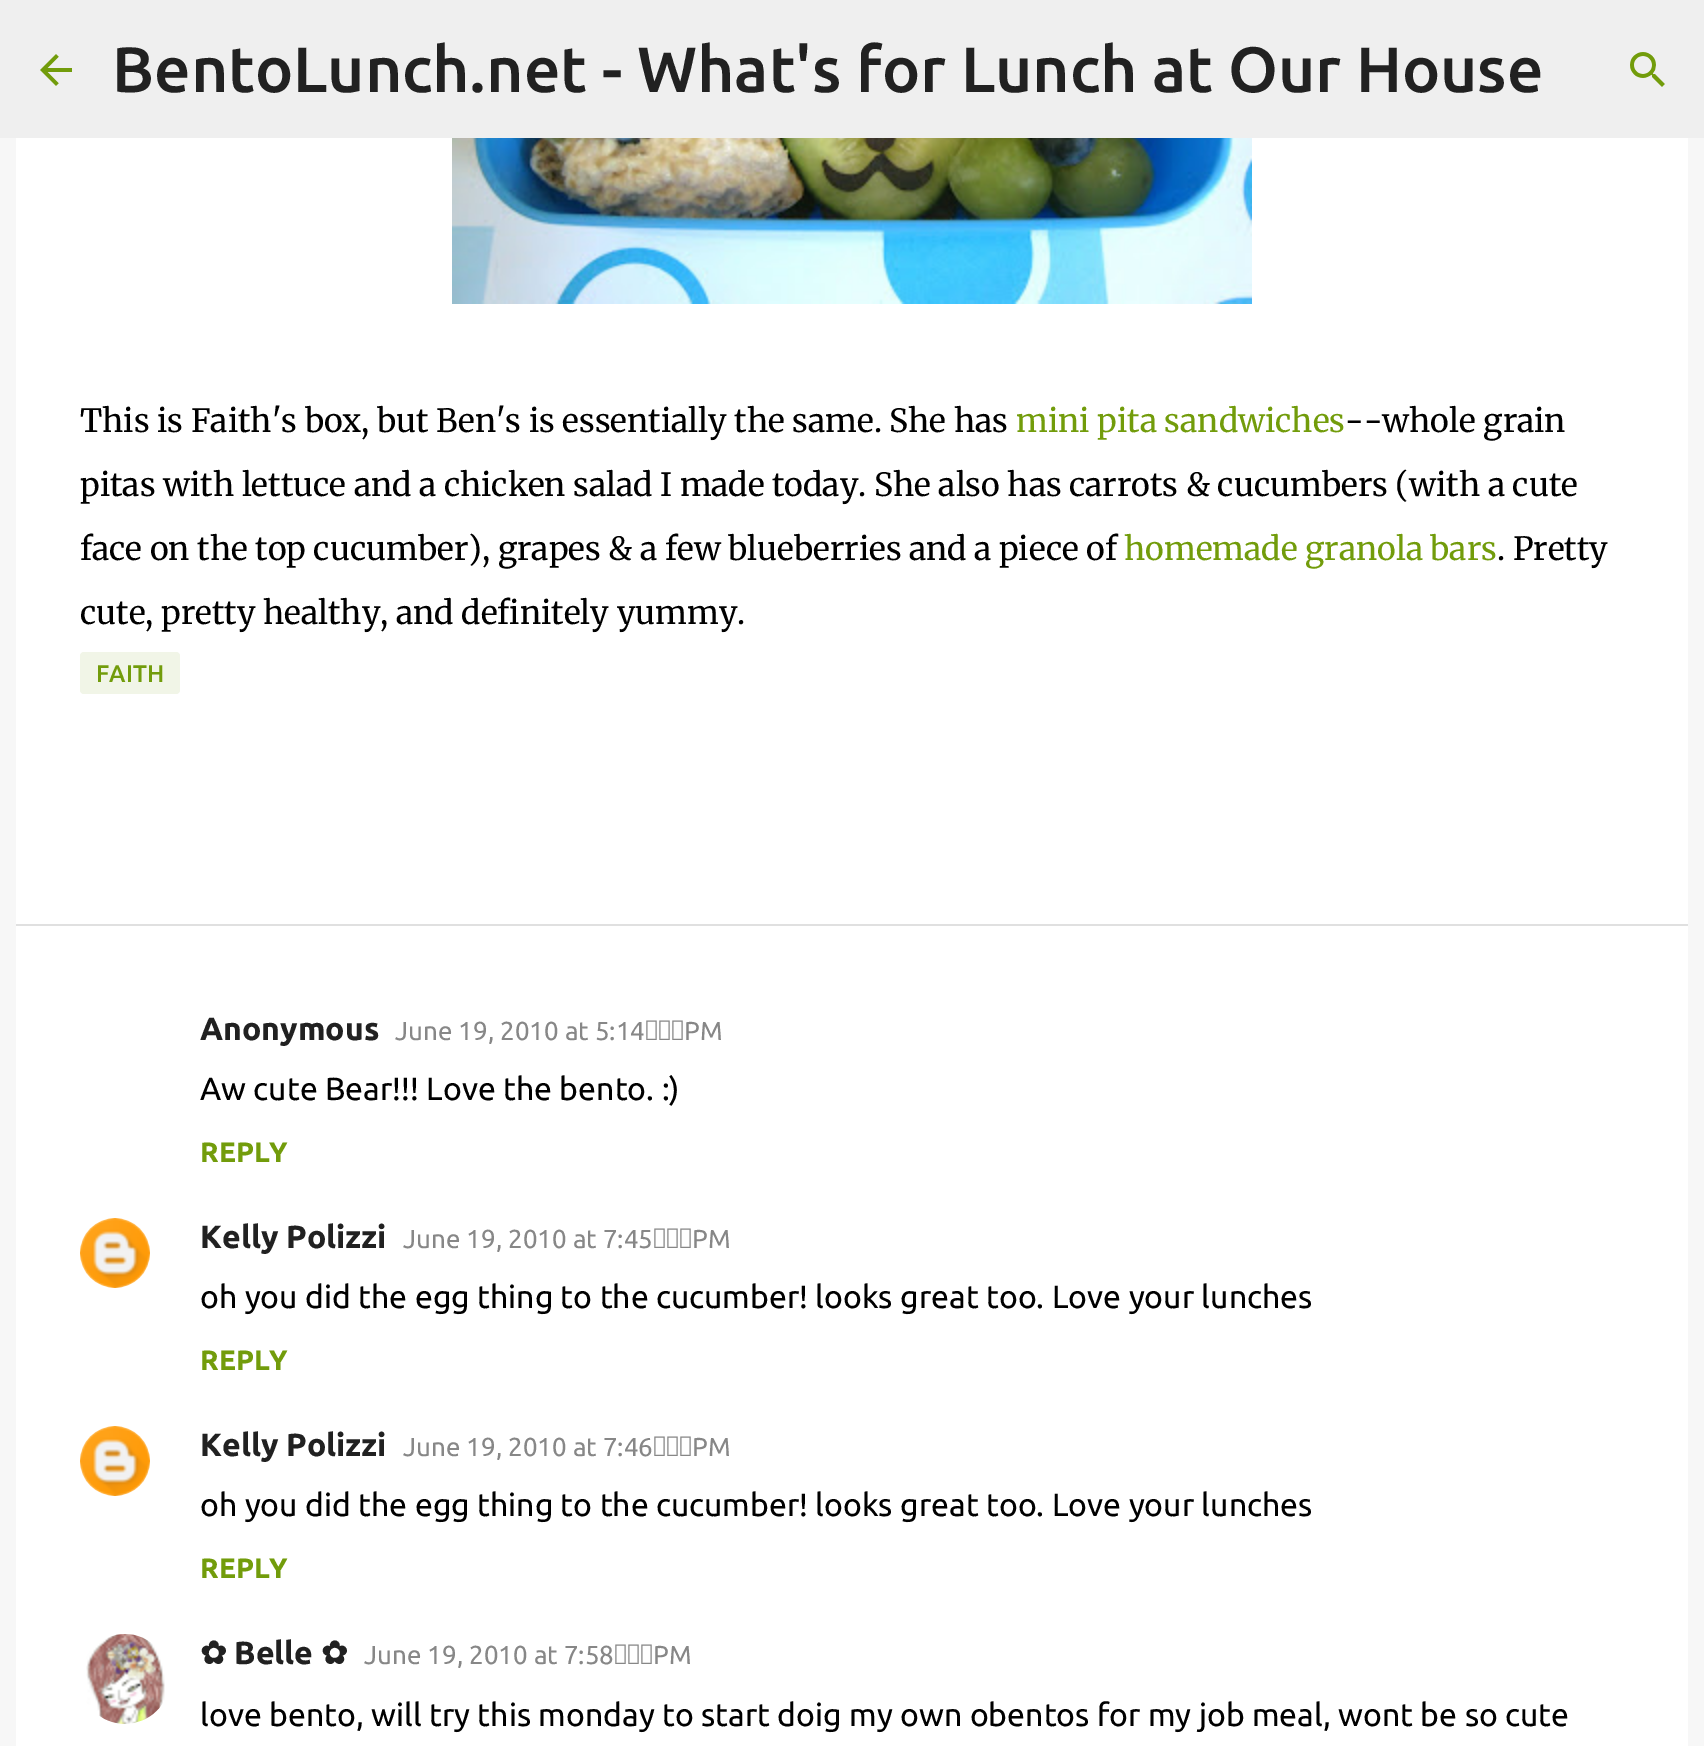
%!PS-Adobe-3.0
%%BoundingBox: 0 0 1704 1746
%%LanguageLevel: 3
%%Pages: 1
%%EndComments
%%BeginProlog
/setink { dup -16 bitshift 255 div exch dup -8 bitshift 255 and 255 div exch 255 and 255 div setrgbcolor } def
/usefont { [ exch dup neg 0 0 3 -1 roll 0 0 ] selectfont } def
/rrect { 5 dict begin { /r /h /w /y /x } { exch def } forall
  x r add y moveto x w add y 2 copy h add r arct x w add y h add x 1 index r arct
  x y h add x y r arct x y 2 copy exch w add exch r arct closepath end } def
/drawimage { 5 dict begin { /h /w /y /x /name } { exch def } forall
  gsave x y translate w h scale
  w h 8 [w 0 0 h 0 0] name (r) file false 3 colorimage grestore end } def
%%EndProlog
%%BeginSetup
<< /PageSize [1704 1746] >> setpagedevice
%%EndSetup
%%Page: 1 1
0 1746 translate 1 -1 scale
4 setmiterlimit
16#F7F7F7 setink
0 0 1704 1746 rectfill
16#EFEFEF setink
0 0 1704 138 rectfill
(img1.raw) 40 54 32 32 drawimage
/Ubuntu-Medium 64 usefont
16#212121 setink
112 92 moveto (BentoLunch.net - What's for Lunch at Our House) show
(img2.raw) 1630 52 35 35 drawimage
16#FFFFFF setink
16 138 1672 786 rectfill
(img3.raw) 452 138 800 166 drawimage
/Merriweather-Regular 32 usefont
16#000000 setink
80 432 moveto (This is Faith's box, but Ben's is essentially the same. She has) show
16#729C0B setink
1016 432 moveto (mini pita sandwiches) show
16#000000 setink
[
    [(--whole grain) 1345 432]
    [(pitas with lettuce and a chicken salad I made today. She also has carrots & cucumbers \(with a cute) 80 496]
    [(face on the top cucumber\), grapes & a few blueberries and a piece of) 80 560]
] { aload pop moveto show } forall
16#729C0B setink
1124 560 moveto (homemade granola bars) show
16#000000 setink
1497 560 moveto (. Pretty) show
80 624 moveto (cute, pretty healthy, and definitely yummy.) show
16#F1F5E7 setink
80 652 100 42 4 rrect fill
/Ubuntu-Medium 24 usefont
16#729C0B setink
96 682 moveto (FAITH) show
16#FFFFFF setink
16 926 1672 820 rectfill
16#E0E0E0 setink
16 924 1672 2 rectfill
/Ubuntu-Bold 32 usefont
16#212121 setink
200 1040 moveto (Anonymous) show
/Ubuntu-Regular 26 usefont
16#878787 setink
395 1040 moveto (June 19, 2010 at 5:14 PM) show
/Ubuntu-Regular 32 usefont
16#000000 setink
200 1100 moveto (Aw cute Bear!!! Love the bento. :\)) show
/Ubuntu-Bold 28 usefont
16#729C0B setink
200 1162 moveto (REPLY) show
(img4.raw) 80 1218 70 70 drawimage
/Ubuntu-Bold 32 usefont
16#212121 setink
200 1248 moveto (Kelly Polizzi) show
/Ubuntu-Regular 26 usefont
16#878787 setink
403 1248 moveto (June 19, 2010 at 7:45 PM) show
/Ubuntu-Regular 32 usefont
16#000000 setink
200 1308 moveto (oh you did the egg thing to the cucumber! looks great too. Love your lunches) show
/Ubuntu-Bold 28 usefont
16#729C0B setink
200 1370 moveto (REPLY) show
(img4.raw) 80 1426 70 70 drawimage
/Ubuntu-Bold 32 usefont
16#212121 setink
200 1456 moveto (Kelly Polizzi) show
/Ubuntu-Regular 26 usefont
16#878787 setink
403 1456 moveto (June 19, 2010 at 7:46 PM) show
/Ubuntu-Regular 32 usefont
16#000000 setink
200 1516 moveto (oh you did the egg thing to the cucumber! looks great too. Love your lunches) show
/Ubuntu-Bold 28 usefont
16#729C0B setink
200 1578 moveto (REPLY) show
(img5.raw) 86 1634 79 90 drawimage
/DejaVuSans-Bold 32 usefont
16#212121 setink
200 1664 moveto (✿) show
/Ubuntu-Bold 32 usefont
234 1664 moveto (Belle) show
/DejaVuSans-Bold 32 usefont
321 1664 moveto (✿) show
/Ubuntu-Regular 26 usefont
16#878787 setink
364 1664 moveto (June 19, 2010 at 7:58 PM) show
/Ubuntu-Regular 32 usefont
16#000000 setink
200 1726 moveto (love bento, will try this monday to start doig my own obentos for my job meal, wont be so cute) show
showpage
%%EOF
